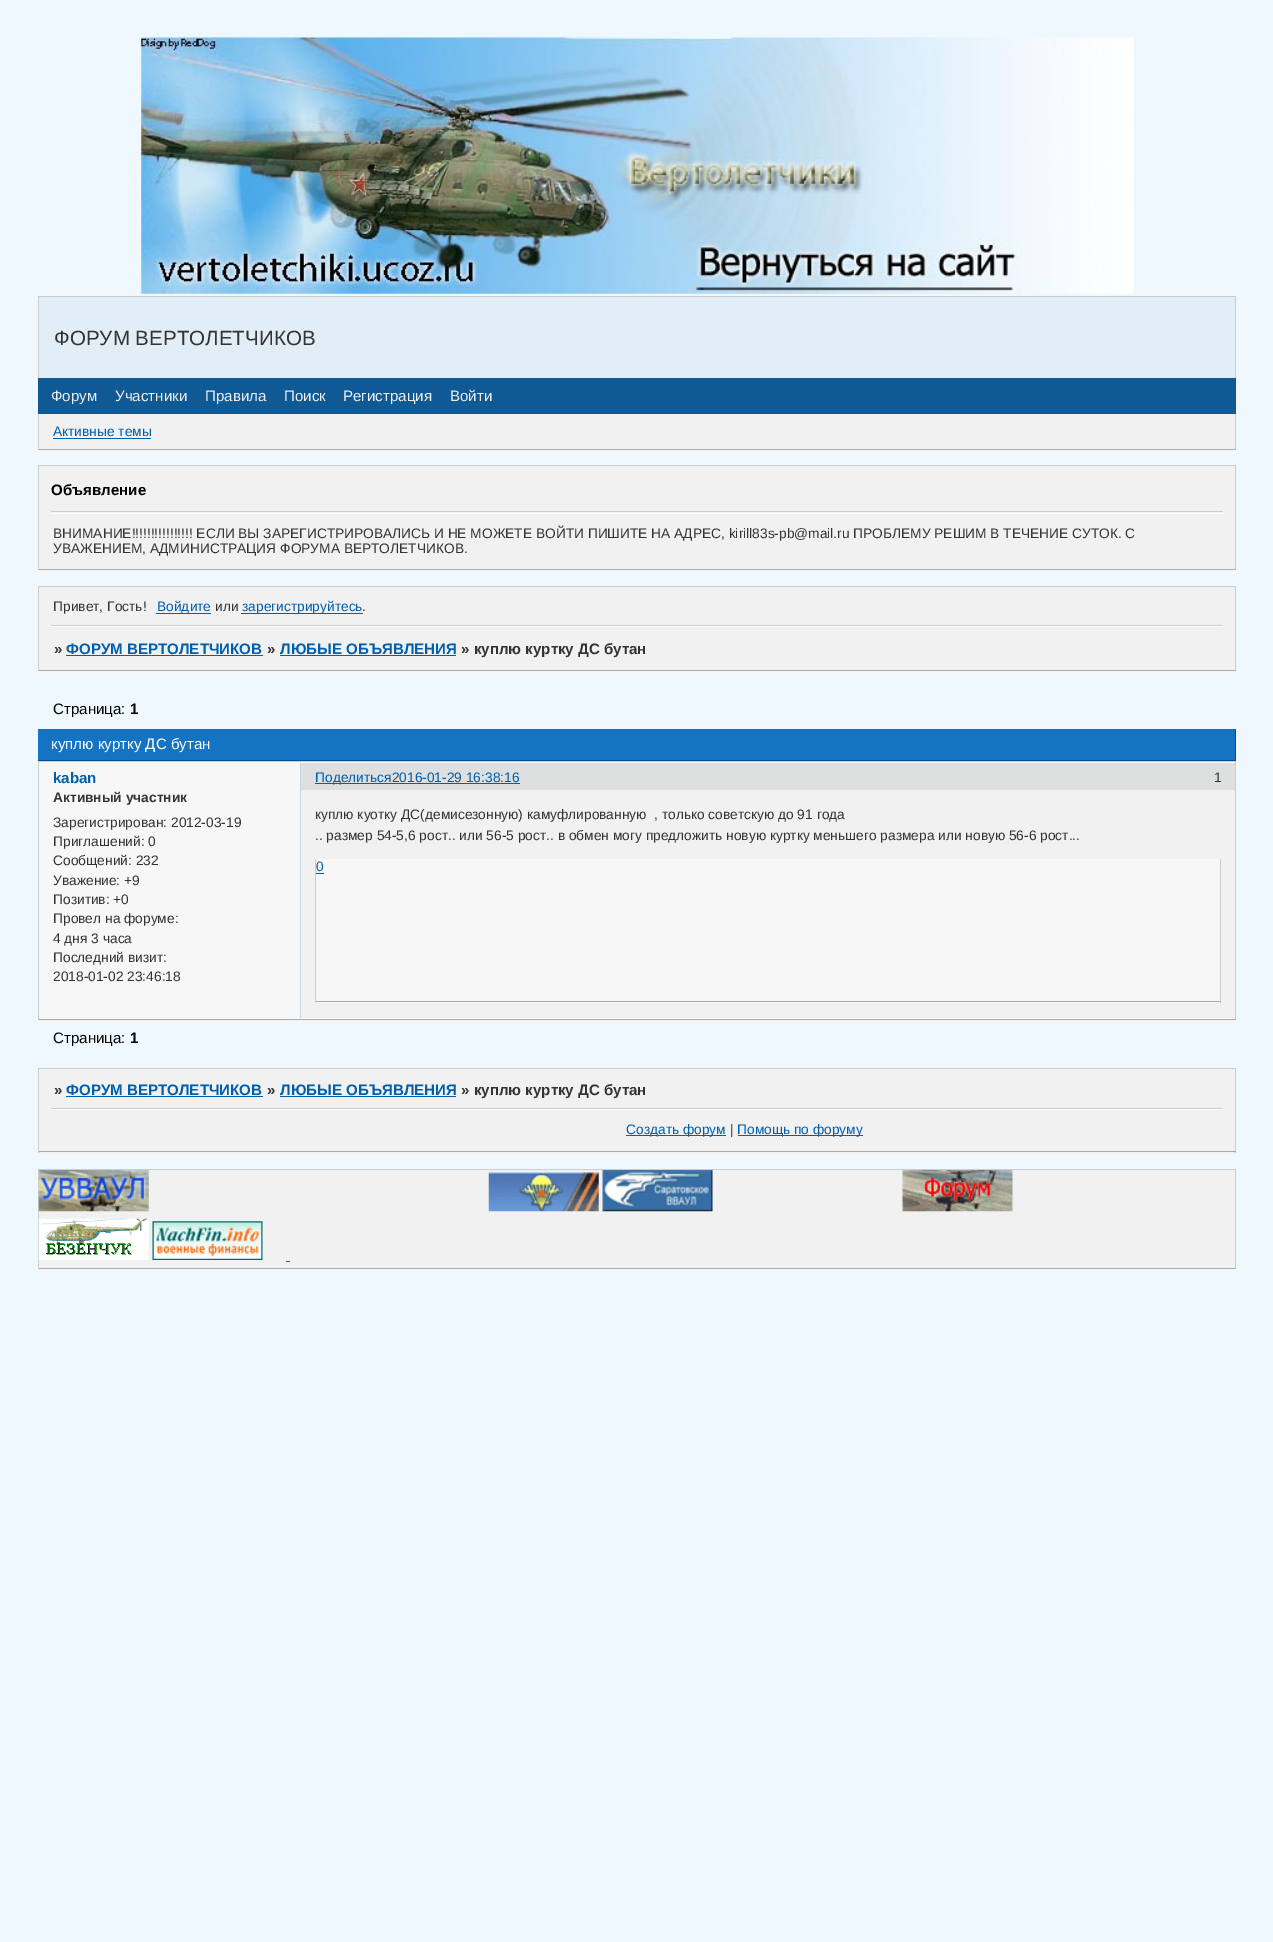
%!PS-Adobe-3.0
%%BoundingBox: 0 0 1273 1942
%%LanguageLevel: 3
%%Pages: 1
%%EndComments
%%BeginProlog
/setink { dup -16 bitshift 255 div exch dup -8 bitshift 255 and 255 div exch 255 and 255 div setrgbcolor } def
/usefont { [ exch dup neg 0 0 3 -1 roll 0 0 ] selectfont } def
/drawimage { 5 dict begin { /h /w /y /x /name } { exch def } forall
  gsave x y translate w h scale
  w h 8 [w 0 0 h 0 0] name (r) file false 3 colorimage grestore end } def
%%EndProlog
%%BeginSetup
<< /PageSize [1273 1942] >> setpagedevice
%%EndSetup
%%Page: 1 1
0 1942 translate 1 -1 scale
4 setmiterlimit
16#F0F8FF setink
0 0 1273 1942 rectfill
(img1.raw) 141 37 993 257 drawimage
[
    [39 297 1196 81 16#E1EDF7]
    [38 296 1198 1 16#CCCCCC]
    [1235 296 1 82 16#CCCCCC]
    [38 296 1 82 16#CCCCCC]
] { aload pop setink rectfill } forall
/LiberationSans-Regular 20.6 usefont
16#333333 setink
54 345 moveto (ФОРУМ ВЕРТОЛЕТЧИКОВ) show
16#0F5995 setink
38 378 1198 36 rectfill
/LiberationSans-Regular 15.1 usefont
16#EEEEEE setink
[
    [(Форум) 51 401]
    [(Участники) 115 401]
    [(Правила) 205 401]
    [(Поиск) 284 401]
    [(Регистрация) 343 401]
    [(Войти) 450 401]
] { aload pop moveto show } forall
[
    [38 450 1198 3 16#F5F5F5]
    [39 414 1196 35 16#F1F1F1]
    [1235 414 1 36 16#CCCCCC]
    [38 449 1198 1 16#AAAAAA]
    [38 414 1 36 16#CCCCCC]
] { aload pop setink rectfill } forall
/LiberationSans-Regular 13.75 usefont
16#005EAB setink
53 436 moveto (Активные темы) show
[
    [53 438 98 1 16#005EAB]
    [38 570 1198 3 16#F5F5F5]
    [39 466 1196 103 16#F1F1F1]
    [51 513 1172 1 16#FFFFFF]
    [51 511 1172 1 16#CCCCCC]
] { aload pop setink rectfill } forall
/LiberationSans-Bold 15.1 usefont
16#000000 setink
51 495 moveto (Объявление) show
[
    [38 465 1198 1 16#CCCCCC]
    [1235 465 1 105 16#CCCCCC]
    [38 569 1198 1 16#AAAAAA]
    [38 465 1 105 16#CCCCCC]
] { aload pop setink rectfill } forall
/LiberationSans-Regular 13.75 usefont
16#333333 setink
53 538 moveto (ВНИМАНИЕ!!!!!!!!!!!!!!!! ЕСЛИ ВЫ ЗАРЕГИСТРИРОВАЛИСЬ И НЕ МОЖЕТЕ ВОЙТИ ПИШИТЕ НА АДРЕС, kirill83s-pb@mail.ru ПРОБЛЕМУ РЕШИМ В ТЕЧЕНИЕ СУТОК. С) show
53 553 moveto (УВАЖЕНИЕМ, АДМИНИСТРАЦИЯ ФОРУМА ВЕРТОЛЕТЧИКОВ.) show
[
    [39 587 1196 83 16#F1F1F1]
    [38 586 1198 1 16#CCCCCC]
    [1235 586 1 85 16#CCCCCC]
    [38 586 1 42 16#CCCCCC]
] { aload pop setink rectfill } forall
16#333333 setink
53 611 moveto (Привет, Гость!) show
16#005EAB setink
156 613 55 1 rectfill
157 611 moveto (Войдите) show
16#333333 setink
215 611 moveto (или) show
16#005EAB setink
241 613 122 1 rectfill
242 611 moveto (зарегистрируйтесь) show
16#333333 setink
362 611 moveto (.) show
[
    [51 625 1172 1 16#CCCCCC]
    [51 626 1172 1 16#FFFFFF]
    [38 671 1198 3 16#F5F5F5]
    [38 670 1198 1 16#AAAAAA]
    [38 625 1 46 16#CCCCCC]
] { aload pop setink rectfill } forall
/LiberationSans-Bold 15.1 usefont
16#333333 setink
54 654 moveto (») show
16#005EAB setink
66 654 moveto (ФОРУМ ВЕРТОЛЕТЧИКОВ) show
66 655 197 1 rectfill
16#333333 setink
267 654 moveto (») show
16#005EAB setink
280 654 moveto (ЛЮБЫЕ ОБЪЯВЛЕНИЯ) show
280 655 176 1 rectfill
16#333333 setink
461 654 moveto (» куплю куртку ДС бутан) show
/LiberationSans-Regular 15.1 usefont
16#000000 setink
53 714 moveto (Страница:) show
/LiberationSans-Bold 15.1 usefont
130 714 moveto (1) show
[
    [38 729 1197 31 16#1474C3]
    [1235 729 1 32 16#004F90]
    [38 760 1198 1 16#004F90]
] { aload pop setink rectfill } forall
/LiberationSans-Regular 15.1 usefont
16#FFFFFF setink
51 749 moveto (куплю куртку ДС бутан) show
[
    [38 1020 1198 3 16#F5F5F5]
    [39 762 1196 28 16#F7F7F7]
    [300 763 1 28 16#C9D6E0]
    [39 790 1196 229 16#F7F7F7]
    [38 761 1198 1 16#CCCCCC]
    [1235 761 1 259 16#CCCCCC]
    [38 1019 1198 1 16#AAAAAA]
    [38 761 1 30 16#CCCCCC]
    [38 790 1 230 16#CCCCCC]
] { aload pop setink rectfill } forall
/LiberationSans-Bold 15.1 usefont
16#005EAB setink
53 783 moveto (kaban) show
/LiberationSans-Bold 13.75 usefont
16#333333 setink
53 802 moveto (Активный участник) show
/LiberationSans-Regular 13.75 usefont
[
    [(Зарегистрирован: 2012-03-19) 53 827]
    [(Приглашений: 0) 53 846]
    [(Сообщений: 232) 53 865]
    [(Уважение: +9) 53 885]
    [(Позитив: +0) 53 904]
    [(Провел на форуме:) 53 923]
    [(4 дня 3 часа) 53 943]
    [(Последний визит:) 53 962]
    [(2018-01-02 23:46:18) 53 981]
] { aload pop moveto show } forall
16#F1F1F1 setink
301 790 934 228 rectfill
16#C9D6E0 setink
300 790 1 228 rectfill
16#333333 setink
315 819 moveto (куплю куотку ДС\(демисезонную\) камуфлированную  , только советскую до 91 года) show
315 840 moveto (.. размер 54-5,6 рост.. или 56-5 рост.. в обмен могу предложить новую куртку меньшего размера или новую 56-6 рост...) show
[
    [316 859 904 144 16#F7F7F7]
    [1220 859 1 144 16#CCCCCC]
    [315 1001 906 1 16#AAAAAA]
    [315 859 1 144 16#CCCCCC]
] { aload pop setink rectfill } forall
16#005EAB setink
316 871 moveto (0) show
[
    [316 873 8 1 16#005EAB]
    [301 763 934 27 16#DEDFDF]
    [315 783 205 1 16#005EAB]
] { aload pop setink rectfill } forall
315 782 moveto (Поделиться2016-01-29 16:38:16) show
16#333333 setink
1214 782 moveto (1) show
/LiberationSans-Regular 15.1 usefont
16#000000 setink
53 1043 moveto (Страница:) show
/LiberationSans-Bold 15.1 usefont
130 1043 moveto (1) show
[
    [38 1068 1198 1 16#CCCCCC]
    [1235 1108 1 45 16#CCCCCC]
    [1235 1068 1 42 16#CCCCCC]
    [39 1069 1196 84 16#F1F1F1]
    [38 1151 1198 1 16#AAAAAA]
    [38 1108 1 45 16#CCCCCC]
    [38 1068 1 42 16#CCCCCC]
] { aload pop setink rectfill } forall
16#333333 setink
54 1095 moveto (») show
16#005EAB setink
66 1095 moveto (ФОРУМ ВЕРТОЛЕТЧИКОВ) show
66 1096 197 1 rectfill
16#333333 setink
267 1095 moveto (») show
16#005EAB setink
280 1095 moveto (ЛЮБЫЕ ОБЪЯВЛЕНИЯ) show
280 1096 176 1 rectfill
16#333333 setink
461 1095 moveto (» куплю куртку ДС бутан) show
[
    [51 1108 1172 1 16#CCCCCC]
    [51 1109 1172 1 16#FFFFFF]
    [38 1153 1198 3 16#F5F5F5]
    [626 1135 100 1 16#005EAB]
] { aload pop setink rectfill } forall
/LiberationSans-Regular 13.75 usefont
626 1134 moveto (Создать форум) show
16#333333 setink
730 1134 moveto (|) show
16#005EAB setink
738 1135 125 1 rectfill
737 1134 moveto (Помощь по форуму) show
[
    [38 1269 1198 3 16#F5F5F5]
    [39 1170 1196 98 16#F1F1F1]
    [38 1169 1198 1 16#CCCCCC]
    [1235 1169 1 100 16#CCCCCC]
    [38 1268 1198 1 16#AAAAAA]
    [38 1169 1 100 16#CCCCCC]
] { aload pop setink rectfill } forall
(img2.raw) 38 1170 111 42 drawimage
(img3.raw) 488 1172 111 40 drawimage
(img4.raw) 602 1170 111 42 drawimage
(img5.raw) 902 1170 111 42 drawimage
(img6.raw) 38 1218 111 42 drawimage
(img7.raw) 152 1221 111 39 drawimage
16#005EAB setink
286 1261 4 1 rectfill
showpage
%%EOF
